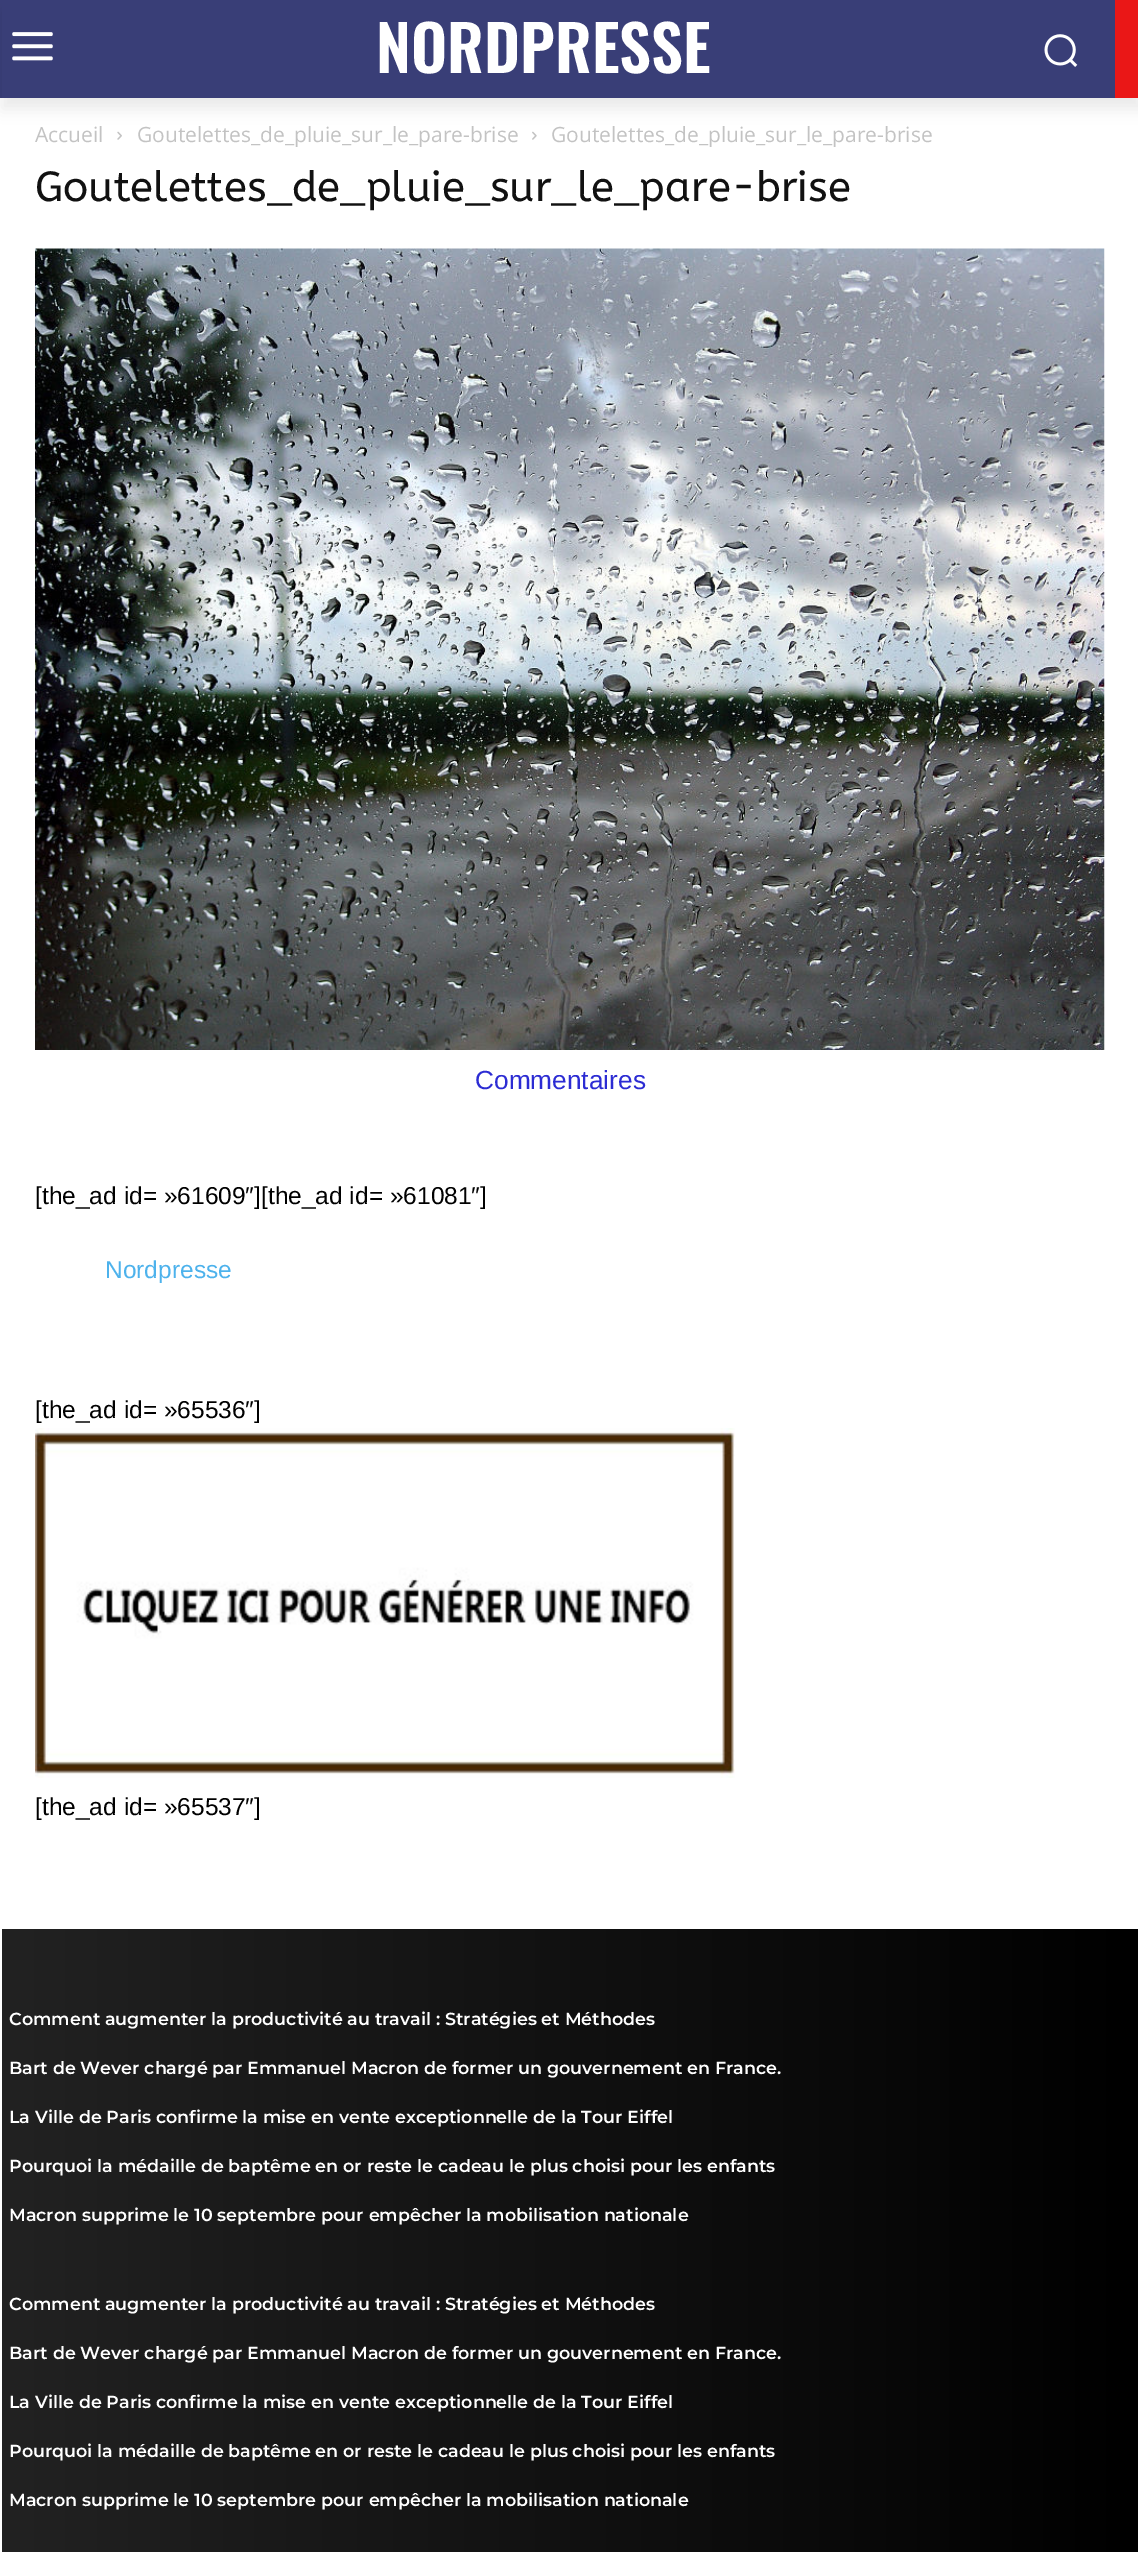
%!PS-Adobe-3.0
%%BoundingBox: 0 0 1138 2552
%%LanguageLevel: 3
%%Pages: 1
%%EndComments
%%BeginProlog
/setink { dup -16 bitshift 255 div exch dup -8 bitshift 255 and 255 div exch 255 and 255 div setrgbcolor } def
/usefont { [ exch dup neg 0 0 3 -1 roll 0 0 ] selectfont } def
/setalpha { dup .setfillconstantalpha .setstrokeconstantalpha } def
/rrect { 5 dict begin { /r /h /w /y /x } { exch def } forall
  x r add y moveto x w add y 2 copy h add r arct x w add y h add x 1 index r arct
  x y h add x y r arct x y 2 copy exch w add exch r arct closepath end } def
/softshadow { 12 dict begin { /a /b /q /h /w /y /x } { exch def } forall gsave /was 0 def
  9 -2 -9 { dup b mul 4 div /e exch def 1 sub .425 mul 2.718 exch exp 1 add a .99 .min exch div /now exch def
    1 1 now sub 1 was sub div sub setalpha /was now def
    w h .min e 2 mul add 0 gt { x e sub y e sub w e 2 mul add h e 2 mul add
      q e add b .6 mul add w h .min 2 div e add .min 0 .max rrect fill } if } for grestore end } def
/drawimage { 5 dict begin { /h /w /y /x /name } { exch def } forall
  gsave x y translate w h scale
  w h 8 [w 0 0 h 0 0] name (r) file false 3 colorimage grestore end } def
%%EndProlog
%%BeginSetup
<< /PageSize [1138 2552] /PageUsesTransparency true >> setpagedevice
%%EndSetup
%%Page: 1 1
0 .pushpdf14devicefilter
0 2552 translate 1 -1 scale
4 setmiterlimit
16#FFFFFF setink
0 0 1138 2552 rectfill
16#393E77 setink
0 0 1115 98 rectfill
(img1.raw) 12 32 41 29 drawimage
(img2.raw) 1044 34 34 33 drawimage
16#EA1717 setink
1115 0 23 98 rectfill
gsave
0 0 moveto 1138 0 lineto 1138 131 lineto 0 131 lineto closepath 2 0 moveto 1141 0 lineto 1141 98 lineto 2 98 lineto closepath eoclip newpath
16#000000 setink
2 11 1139 98 0 7 0.08 softshadow
grestore
/Oswald-SemiBold 63 usefont
16#FFFFFF setink
376 73 moveto (NORDPRESSE) show
/OpenSans-Regular 21 usefont
16#C3C3C3 setink
35 142 moveto (Accueil) show
(img3.raw) 117 131 5 9 drawimage
137 142 moveto (Goutelettes_de_pluie_sur_le_pare-brise) show
(img4.raw) 532 131 5 9 drawimage
551 142 moveto (Goutelettes_de_pluie_sur_le_pare-brise) show
/ABeeZee-Regular 42 usefont
16#111111 setink
35 201 moveto (Goutelettes_de_pluie_sur_le_pare-brise) show
(img5.raw) 35 248 1070 802 drawimage
/LiberationSans-Regular 26.25 usefont
16#2C2CD3 setink
475 1089 moveto (Commentaires) show
/LiberationSans-Regular 24.5 usefont
16#000000 setink
35 1204 moveto ([the_ad id= »61609″][the_ad id= »61081″]) show
16#4DB2EC setink
105 1278 moveto (Nordpresse) show
16#000000 setink
35 1418 moveto ([the_ad id= »65536″]) show
(img6.raw) 35 1428 700 350 drawimage
35 1815 moveto ([the_ad id= »65537″]) show
gsave 2 1929 moveto 1138 1929 lineto 1138 2552 lineto 2 2552 lineto closepath clip newpath
<< /ShadingType 2 /ColorSpace /DeviceRGB /Coords [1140 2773 0.9 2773] /Extend [true true] /Function << /FunctionType 2 /Domain [0 1] /C0 [0 0 0] /C1 [0.133 0.133 0.133] /N 1 >> >> shfill grestore
/Montserrat-SemiBold 17.5 usefont
16#FFFFFF setink
[
    [(Comment augmenter la productivité au travail : Stratégies et Méthodes) 9 2025]
    [(Bart de Wever chargé par Emmanuel Macron de former un gouvernement en France.) 9 2074]
    [(La Ville de Paris confirme la mise en vente exceptionnelle de la Tour Eiffel) 9 2123]
    [(Pourquoi la médaille de baptême en or reste le cadeau le plus choisi pour les enfants) 9 2172]
    [(Macron supprime le 10 septembre pour empêcher la mobilisation nationale) 9 2221]
    [(Comment augmenter la productivité au travail : Stratégies et Méthodes) 9 2310]
    [(Bart de Wever chargé par Emmanuel Macron de former un gouvernement en France.) 9 2359]
    [(La Ville de Paris confirme la mise en vente exceptionnelle de la Tour Eiffel) 9 2408]
    [(Pourquoi la médaille de baptême en or reste le cadeau le plus choisi pour les enfants) 9 2457]
    [(Macron supprime le 10 septembre pour empêcher la mobilisation nationale) 9 2506]
] { aload pop moveto show } forall
.poppdf14devicefilter showpage
%%EOF
